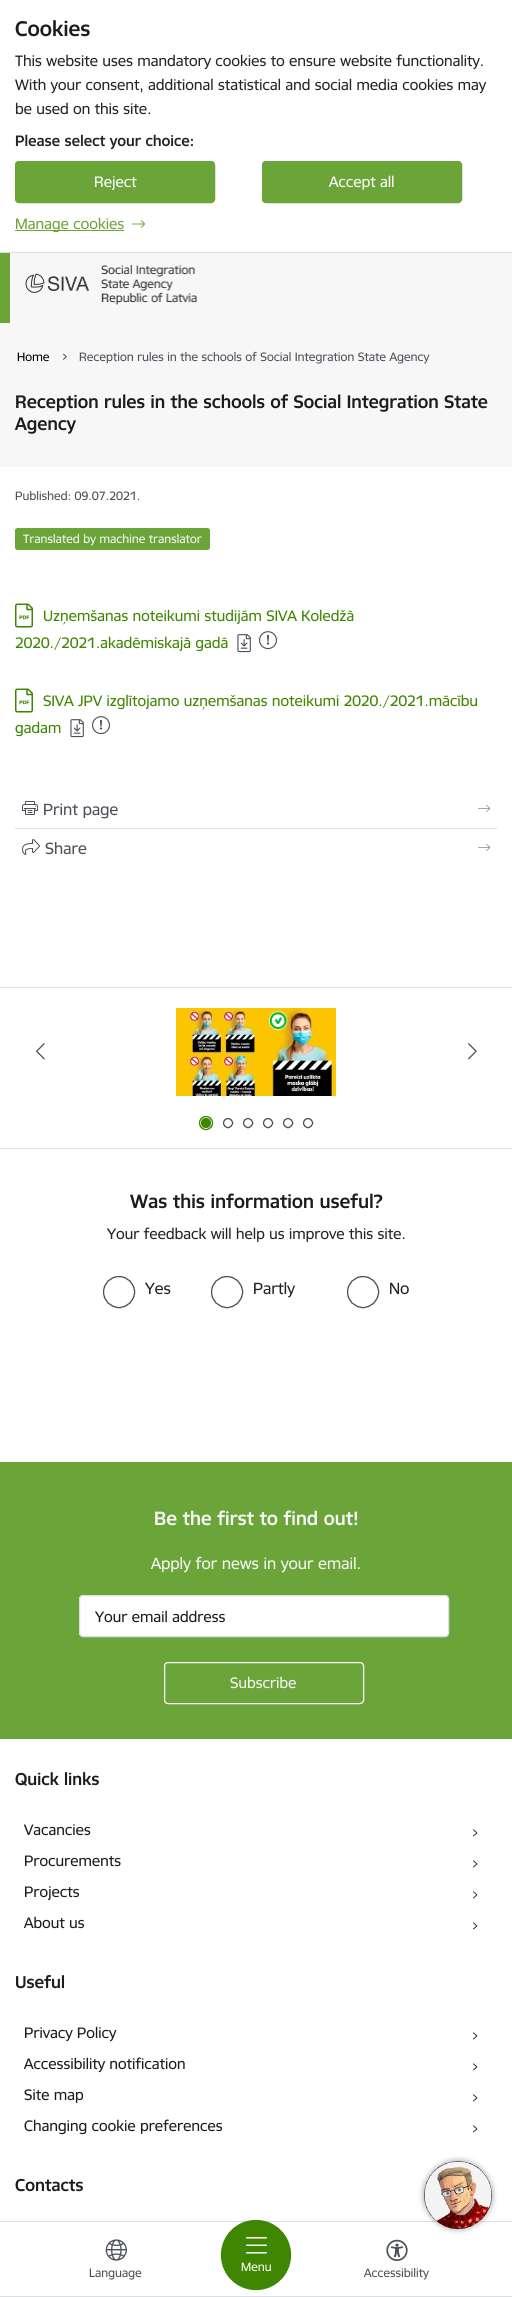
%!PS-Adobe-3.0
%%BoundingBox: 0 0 512 2297
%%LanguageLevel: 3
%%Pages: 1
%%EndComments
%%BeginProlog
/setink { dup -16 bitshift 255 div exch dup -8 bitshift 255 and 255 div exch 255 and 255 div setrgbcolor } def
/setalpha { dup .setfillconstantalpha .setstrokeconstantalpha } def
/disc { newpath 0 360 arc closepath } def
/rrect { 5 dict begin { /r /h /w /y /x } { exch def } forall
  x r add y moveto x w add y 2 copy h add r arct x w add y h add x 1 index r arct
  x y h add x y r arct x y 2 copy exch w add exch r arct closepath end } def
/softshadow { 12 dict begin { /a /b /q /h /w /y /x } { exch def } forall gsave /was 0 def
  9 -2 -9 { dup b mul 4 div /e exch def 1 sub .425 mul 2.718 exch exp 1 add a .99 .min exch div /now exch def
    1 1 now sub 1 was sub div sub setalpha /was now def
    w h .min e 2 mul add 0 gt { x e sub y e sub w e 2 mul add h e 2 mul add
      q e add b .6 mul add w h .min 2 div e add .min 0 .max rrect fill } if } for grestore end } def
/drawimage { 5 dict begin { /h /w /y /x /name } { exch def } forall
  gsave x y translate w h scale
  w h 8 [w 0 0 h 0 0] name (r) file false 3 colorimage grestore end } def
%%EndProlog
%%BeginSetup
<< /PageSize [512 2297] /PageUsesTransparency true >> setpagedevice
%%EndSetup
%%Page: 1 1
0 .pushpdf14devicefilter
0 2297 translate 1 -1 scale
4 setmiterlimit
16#FFFFFF setink
0 0 512 2297 rectfill
16#DBDEE4 setink
0 252 512 1 rectfill
(img1.raw) 15 20 75 17 drawimage
(img2.raw) 15 54 468 16 drawimage
(img3.raw) 15 78 472 16 drawimage
(img4.raw) 15 102 136 13 drawimage
(img5.raw) 15 134 178 16 drawimage
16#6BA539 setink
15.5 161.5 199 41 3.5 rrect gsave fill grestore
stroke
(img6.raw) 95 176 42 14 drawimage
262.5 161.5 199 41 3.5 rrect gsave fill grestore
stroke
(img7.raw) 328 175 66 15 drawimage
15 230 109 1 rectfill
(img8.raw) 16 217 108 16 drawimage
(img9.raw) 132 220 14 8 drawimage
16#DBDEE4 setink
0 2221 512 1 rectfill
16#3F8603 setink
256 2255 35 disc fill
(img10.raw) 246 2237 21 17 drawimage
(img11.raw) 241 2262 30 10 drawimage
16#DBDEE4 setink
0 2296 512 1 rectfill
(img12.raw) 105 2239 22 22 drawimage
(img13.raw) 89 2268 53 12 drawimage
(img14.raw) 386 2239 22 22 drawimage
(img15.raw) 363 2268 66 12 drawimage
16#F7F7F7 setink
0 253 512 214 rectfill
16#6BA539 setink
0 253 10 70 rectfill
(img16.raw) 25 265 172 40 drawimage
(img17.raw) 17 352 32 10 drawimage
(img18.raw) 63 353 4 7 drawimage
(img19.raw) 79 351 351 13 drawimage
(img20.raw) 16 394 472 18 drawimage
(img21.raw) 14 417 62 17 drawimage
(img22.raw) 15 491 125 10 drawimage
15 528 195 22 3 rrect fill
(img23.raw) 23 534 179 12 drawimage
(img24.raw) 15 603 18 25 drawimage
(img25.raw) 43 609 311 16 drawimage
(img26.raw) 15 636 213 16 drawimage
(img27.raw) 237 634 14 19 drawimage
(img28.raw) 259 631 18 19 drawimage
(img24.raw) 15 688 18 25 drawimage
(img29.raw) 43 694 434 16 drawimage
(img30.raw) 15 721 46 16 drawimage
(img27.raw) 70 719 14 19 drawimage
(img28.raw) 92 716 18 19 drawimage
16#DBDEE4 setink
15 828 482 1 rectfill
(img31.raw) 22 801 16 14 drawimage
(img32.raw) 44 803 74 16 drawimage
(img33.raw) 478 805 13 7 drawimage
(img34.raw) 22 839 18 16 drawimage
(img35.raw) 45 842 42 13 drawimage
(img33.raw) 478 844 13 7 drawimage
0 987 512 1 rectfill
(img36.raw) 36 1043 9 17 drawimage
(img37.raw) 176 1008 160 88 drawimage
(img38.raw) 468 1043 9 17 drawimage
16#3F8603 setink
206 1123 6.5 disc stroke
206 1123 5 disc fill
16#4C5059 setink
228 1123 4.5 disc stroke
248 1123 4.5 disc stroke
268 1123 4.5 disc stroke
288 1123 4.5 disc stroke
308 1123 4.5 disc stroke
16#DBDEE4 setink
0 1148 512 1 rectfill
(img39.raw) 130 1193 253 16 drawimage
(img40.raw) 106 1227 299 15 drawimage
16#4C5059 setink
119 1292 15.5 disc stroke
(img41.raw) 144 1282 27 13 drawimage
227 1292 15.5 disc stroke
(img42.raw) 254 1282 42 16 drawimage
363 1292 15.5 disc stroke
(img43.raw) 390 1282 19 13 drawimage
16#6BA539 setink
0 1462 512 277 rectfill
(img44.raw) 155 1510 203 16 drawimage
(img45.raw) 150 1556 210 17 drawimage
16#FFFFFF setink
79.5 1595.5 369 41 3.5 rrect gsave fill grestore
16#DBDEE4 setink
stroke
(img46.raw) 95 1610 130 13 drawimage
16#F7F7F7 setink
164.5 1662.5 199 41 3.5 rrect stroke
(img47.raw) 230 1676 66 13 drawimage
(img48.raw) 15 1772 84 14 drawimage
(img49.raw) 23 1824 68 12 drawimage
(img50.raw) 473 1829 5 8 drawimage
(img51.raw) 25 1855 96 12 drawimage
(img50.raw) 473 1860 5 8 drawimage
(img52.raw) 25 1886 54 14 drawimage
(img50.raw) 473 1891 5 8 drawimage
(img53.raw) 23 1916 61 13 drawimage
(img50.raw) 473 1922 5 8 drawimage
(img54.raw) 16 1975 49 14 drawimage
(img55.raw) 25 2026 92 16 drawimage
(img50.raw) 473 2032 5 8 drawimage
(img56.raw) 23 2057 162 16 drawimage
(img50.raw) 473 2063 5 8 drawimage
(img57.raw) 24 2089 60 14 drawimage
(img50.raw) 473 2094 5 8 drawimage
(img58.raw) 24 2119 199 16 drawimage
(img50.raw) 473 2125 5 8 drawimage
(img59.raw) 15 2178 68 14 drawimage
16#000000 setink
422 2159 72 72 36 2 0.2 softshadow
16#FFFFFF setink
458 2195 34 disc fill
(img60.raw) 424 2161 68 68 drawimage
.poppdf14devicefilter showpage
%%EOF
